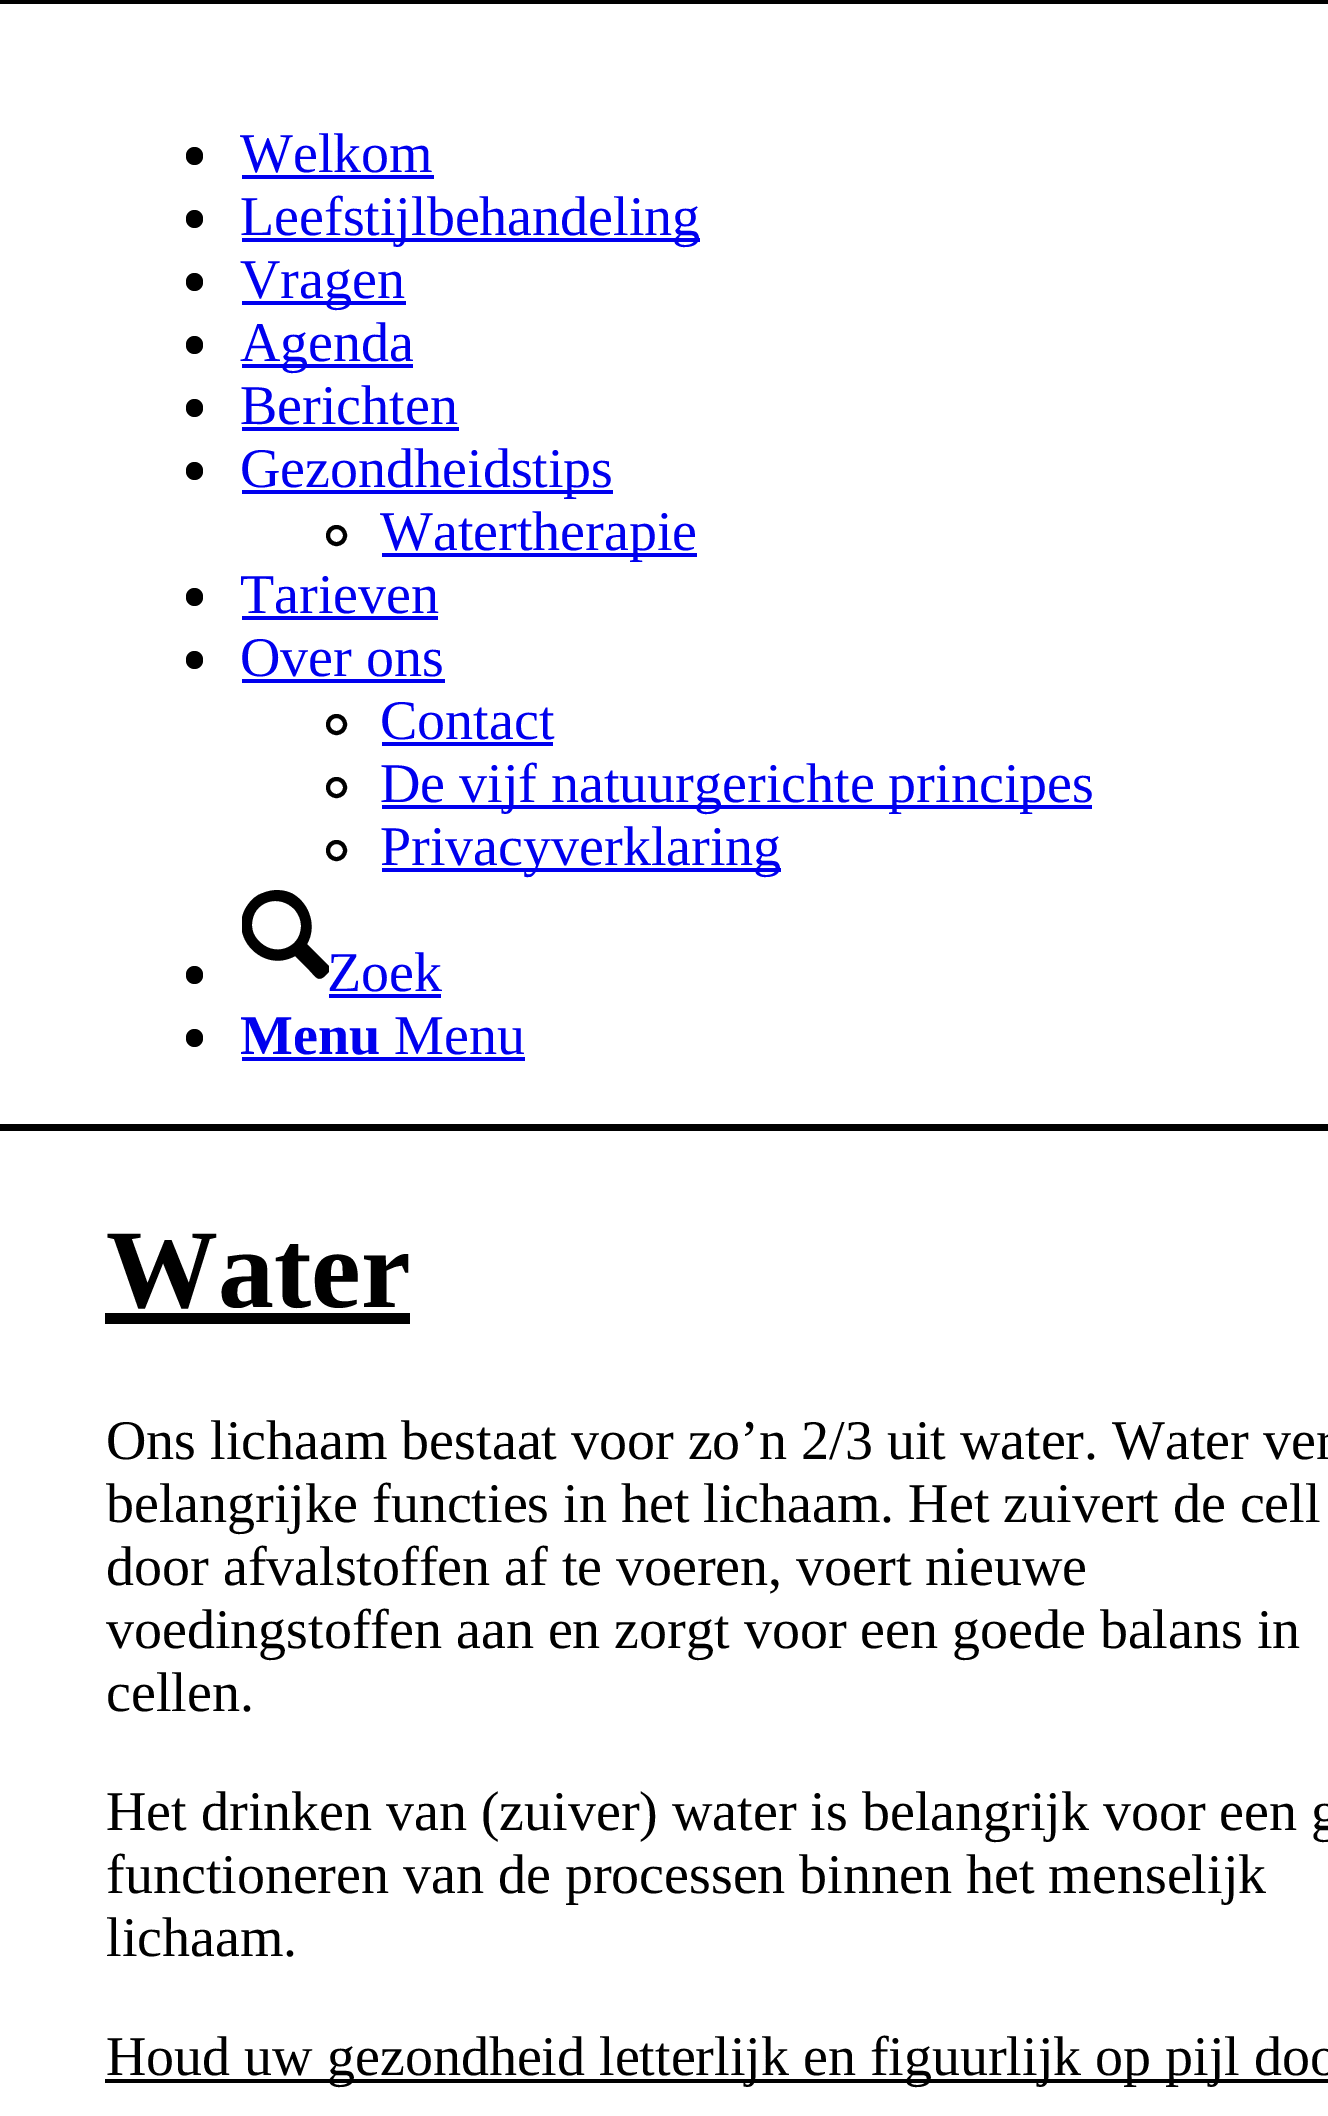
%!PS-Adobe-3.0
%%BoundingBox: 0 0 1328 2116
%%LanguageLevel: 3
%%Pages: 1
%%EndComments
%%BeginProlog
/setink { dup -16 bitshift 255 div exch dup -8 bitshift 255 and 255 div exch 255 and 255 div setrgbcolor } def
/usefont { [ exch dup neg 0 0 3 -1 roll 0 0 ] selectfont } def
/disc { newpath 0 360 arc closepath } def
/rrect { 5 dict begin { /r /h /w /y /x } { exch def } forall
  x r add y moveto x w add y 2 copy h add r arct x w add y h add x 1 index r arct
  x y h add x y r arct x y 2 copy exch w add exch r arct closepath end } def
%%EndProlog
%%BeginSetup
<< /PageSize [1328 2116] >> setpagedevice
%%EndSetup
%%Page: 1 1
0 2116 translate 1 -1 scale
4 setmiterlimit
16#FFFFFF setink
0 0 1328 2116 rectfill
16#000000 setink
0 0 1328 4 rectfill
186 147 17 18 8.5 rrect fill
/LiberationSerif-Regular 56 usefont
16#0000EE setink
240 172 moveto (Welkom) show
242 175 192 4 rectfill
16#000000 setink
186 210 17 18 8.5 rrect fill
16#0000EE setink
242 238 458 4 rectfill
240 235 moveto (Leefstijlbehandeling) show
16#000000 setink
186 273 17 18 8.5 rrect fill
16#0000EE setink
242 301 164 4 rectfill
240 298 moveto (Vragen) show
16#000000 setink
186 336 17 18 8.5 rrect fill
16#0000EE setink
242 364 171 4 rectfill
240 361 moveto (Agenda) show
16#000000 setink
186 399 17 18 8.5 rrect fill
16#0000EE setink
240 424 moveto (Berichten) show
242 427 217 4 rectfill
16#000000 setink
186 462 17 18 8.5 rrect fill
16#0000EE setink
242 490 371 4 rectfill
240 487 moveto (Gezondheidstips) show
16#000000 setink
4 setlinewidth
336.5 535.5 8.5 disc stroke
16#0000EE setink
382 553 315 4 rectfill
380 550 moveto (Watertherapie) show
16#000000 setink
186 588 17 18 8.5 rrect fill
16#0000EE setink
240 613 moveto (Tarieven) show
242 616 196 4 rectfill
16#000000 setink
186 651 17 18 8.5 rrect fill
16#0000EE setink
240 676 moveto (Over ons) show
242 679 203 4 rectfill
16#000000 setink
336.5 724.5 8.5 disc stroke
16#0000EE setink
380 739 moveto (Contact) show
382 742 171 4 rectfill
16#000000 setink
336.5 787.5 8.5 disc stroke
16#0000EE setink
382 805 710 4 rectfill
380 802 moveto (De vijf natuurgerichte principes) show
16#000000 setink
336.5 850.5 8.5 disc stroke
16#0000EE setink
382 868 399 4 rectfill
380 865 moveto (Privacyverklaring) show
16#000000 setink
186 966 17 18 8.5 rrect fill
16#0000EE setink
327 991 moveto (Zoek) show
329 994 112 4 rectfill
gsave
242 879 87 112 rectclip
16#000000 setink
328 965 moveto 332 969 329 972 326 975 curveto 318 983 316 977 309 970 curveto 295 956 lineto 263 974 227 936 247 906 curveto 251 900 256 895 263 893 curveto 272 889 284 889 293 894 curveto 310 904 317 927 307 944 curveto closepath 252 925 moveto 252 931 254 936 258 940 curveto 273 958 301 949 301 926 curveto 301 920 299 915 295 910 curveto 280 893 252 901 252 925 curveto closepath fill
grestore
16#000000 setink
186 1029 17 18 8.5 rrect fill
/LiberationSerif-Bold 56 usefont
16#0000EE setink
240 1054 moveto (Menu) show
242 1057 283 4 rectfill
/LiberationSerif-Regular 56 usefont
394 1054 moveto (Menu) show
16#000000 setink
0 1124 1328 7 rectfill
/LiberationSerif-Bold 112 usefont
106 1307 moveto (Water) show
105 1313 305 11 rectfill
/LiberationSerif-Regular 56 usefont
[
    [(Ons lichaam bestaat voor zo’n 2/3 uit water. Water ver) 106 1459]
    [(belangrijke functies in het lichaam. Het zuivert de cell) 106 1522]
    [(door afvalstoffen af te voeren, voert nieuwe) 106 1585]
    [(voedingstoffen aan en zorgt voor een goede balans in) 106 1648]
    [(cellen.) 106 1711]
    [(Het drinken van \(zuiver\) water is belangrijk voor een g) 106 1830]
    [(functioneren van de processen binnen het menselijk) 106 1893]
    [(lichaam.) 106 1956]
] { aload pop moveto show } forall
105 2079 1223 4 rectfill
106 2075 moveto (Houd uw gezondheid letterlijk en figuurlijk op pijl doo) show
showpage
%%EOF
